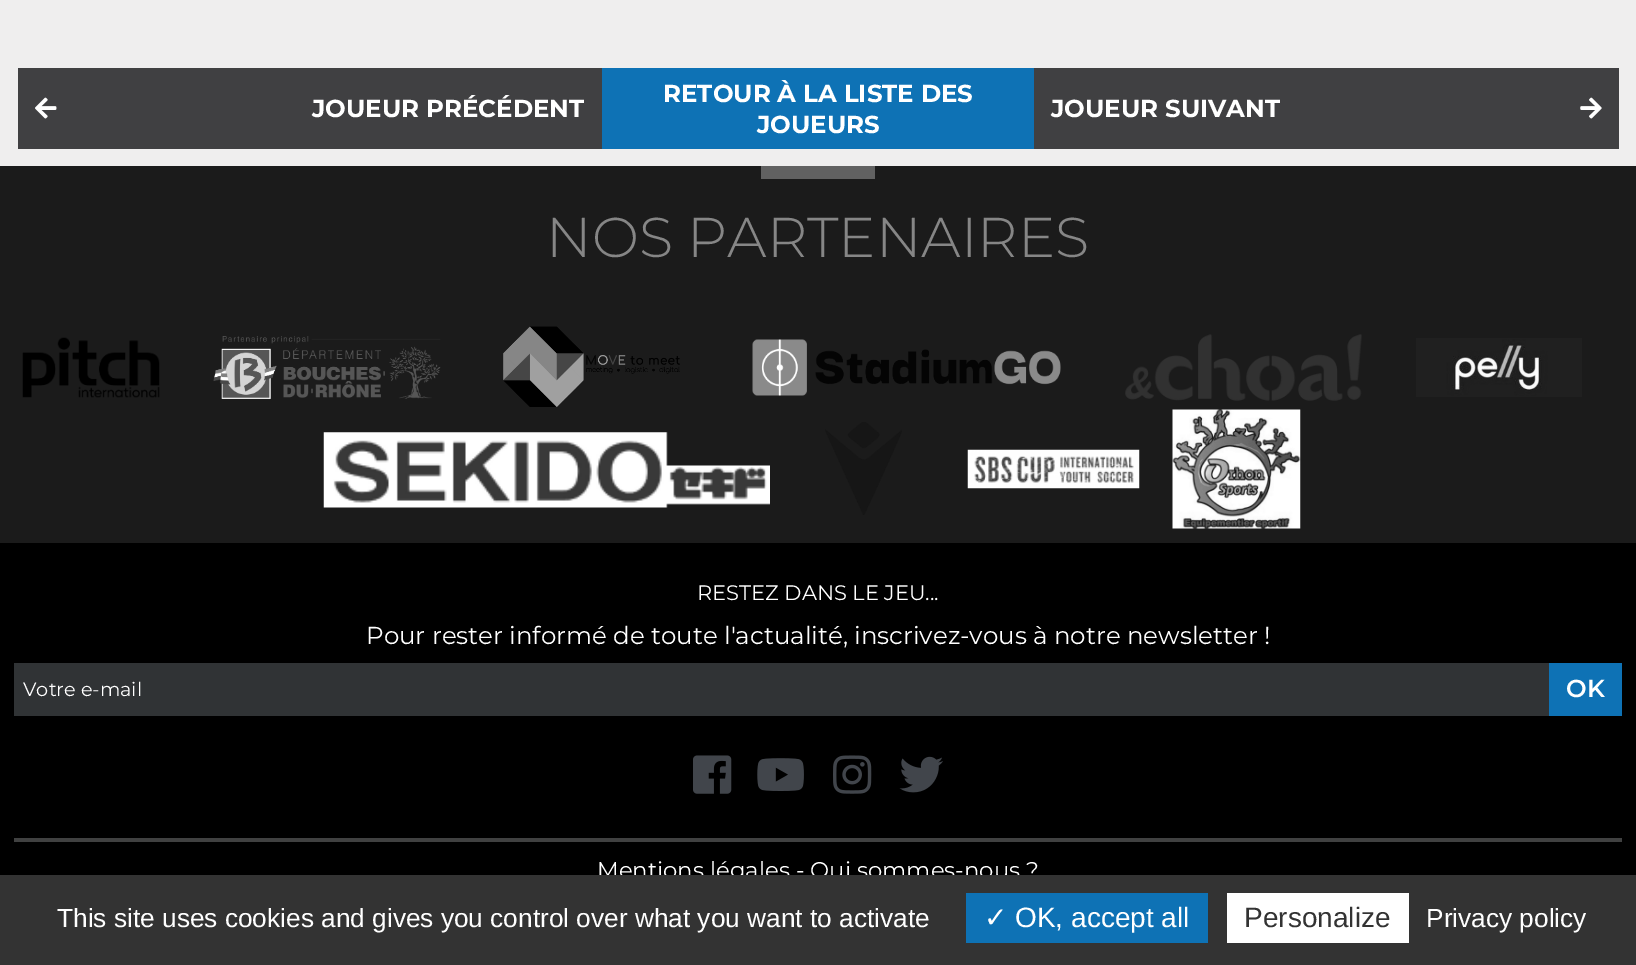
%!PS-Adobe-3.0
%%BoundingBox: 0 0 1636 965
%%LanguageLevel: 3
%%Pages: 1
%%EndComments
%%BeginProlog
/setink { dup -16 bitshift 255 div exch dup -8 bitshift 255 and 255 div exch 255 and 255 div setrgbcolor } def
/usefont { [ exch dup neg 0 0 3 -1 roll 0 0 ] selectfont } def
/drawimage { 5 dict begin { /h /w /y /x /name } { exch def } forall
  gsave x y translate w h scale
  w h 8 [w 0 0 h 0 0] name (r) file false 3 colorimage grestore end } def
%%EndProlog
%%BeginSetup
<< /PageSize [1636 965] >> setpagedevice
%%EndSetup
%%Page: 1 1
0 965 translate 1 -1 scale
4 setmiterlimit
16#EFEEEE setink
0 0 1636 965 rectfill
16#404042 setink
18 68 584 81 rectfill
(img1.raw) 35 97 22 22 drawimage
/Montserrat-Bold 24.5 usefont
16#FFFFFF setink
312 117 moveto (JOUEUR PRÉCÉDENT) show
16#0E72B5 setink
602 68 432 81 rectfill
16#FFFFFF setink
663 102 moveto (RETOUR À LA LISTE DES) show
757 133 moveto (JOUEURS) show
16#404042 setink
1034 68 585 81 rectfill
16#FFFFFF setink
1051 117 moveto (JOUEUR SUIVANT) show
(img2.raw) 1580 97 22 22 drawimage
16#1B1B1B setink
0 166 1636 377 rectfill
16#616161 setink
761 166 114 13 rectfill
/Montserrat-Light 56 usefont
16#868686 setink
546 257 moveto (NOS PARTENAIRES) show
(img3.raw) 22 337 138 61 drawimage
(img4.raw) 213 336 228 63 drawimage
(img5.raw) 503 326 177 81 drawimage
(img6.raw) 752 339 309 57 drawimage
(img7.raw) 1125 334 237 67 drawimage
(img8.raw) 1416 338 166 59 drawimage
(img9.raw) 323 432 447 76 drawimage
(img10.raw) 825 422 77 93 drawimage
(img11.raw) 967 449 173 40 drawimage
(img12.raw) 1172 409 129 120 drawimage
16#000000 setink
0 543 1636 332 rectfill
/Montserrat-Regular 21 usefont
16#FFFFFF setink
697 600 moveto (RESTEZ DANS LE JEU...) show
/Montserrat-Regular 24.5 usefont
366 644 moveto (Pour rester informé de toute l'actualité, inscrivez-vous à notre newsletter !) show
16#303335 setink
14 663 1535 53 rectfill
/Montserrat-Regular 19.25 usefont
16#FFFFFF setink
23 696 moveto (Votre e-mail) show
16#0E72B5 setink
1549 663 73 53 rectfill
/Montserrat-SemiBold 24.5 usefont
16#FFFFFF setink
1566 697 moveto (OK) show
16#404141 setink
14 838 1608 4 rectfill
(img13.raw) 693 755 39 39 drawimage
(img14.raw) 757 758 47 33 drawimage
(img15.raw) 833 755 39 39 drawimage
(img16.raw) 899 756 44 37 drawimage
/Montserrat-Regular 22.75 usefont
16#FFFFFF setink
597 878 moveto (Mentions légales - Qui sommes-nous ?) show
16#333333 setink
0 875 1636 90 rectfill
/LiberationSans-Regular 26.25 usefont
16#FFFFFF setink
57 927 moveto (This site uses cookies and gives you control over what you want to activate) show
16#0E72B5 setink
966 893 242 50 rectfill
/DejaVuSans-Regular 28 usefont
16#FFFFFF setink
984 927 moveto (✓) show
/LiberationSans-Regular 28 usefont
1015 927 moveto (OK, accept all) show
1227 893 182 50 rectfill
16#333333 setink
1244 927 moveto (Personalize) show
/LiberationSans-Regular 26.25 usefont
16#FFFFFF setink
1426 927 moveto (Privacy policy) show
showpage
%%EOF
